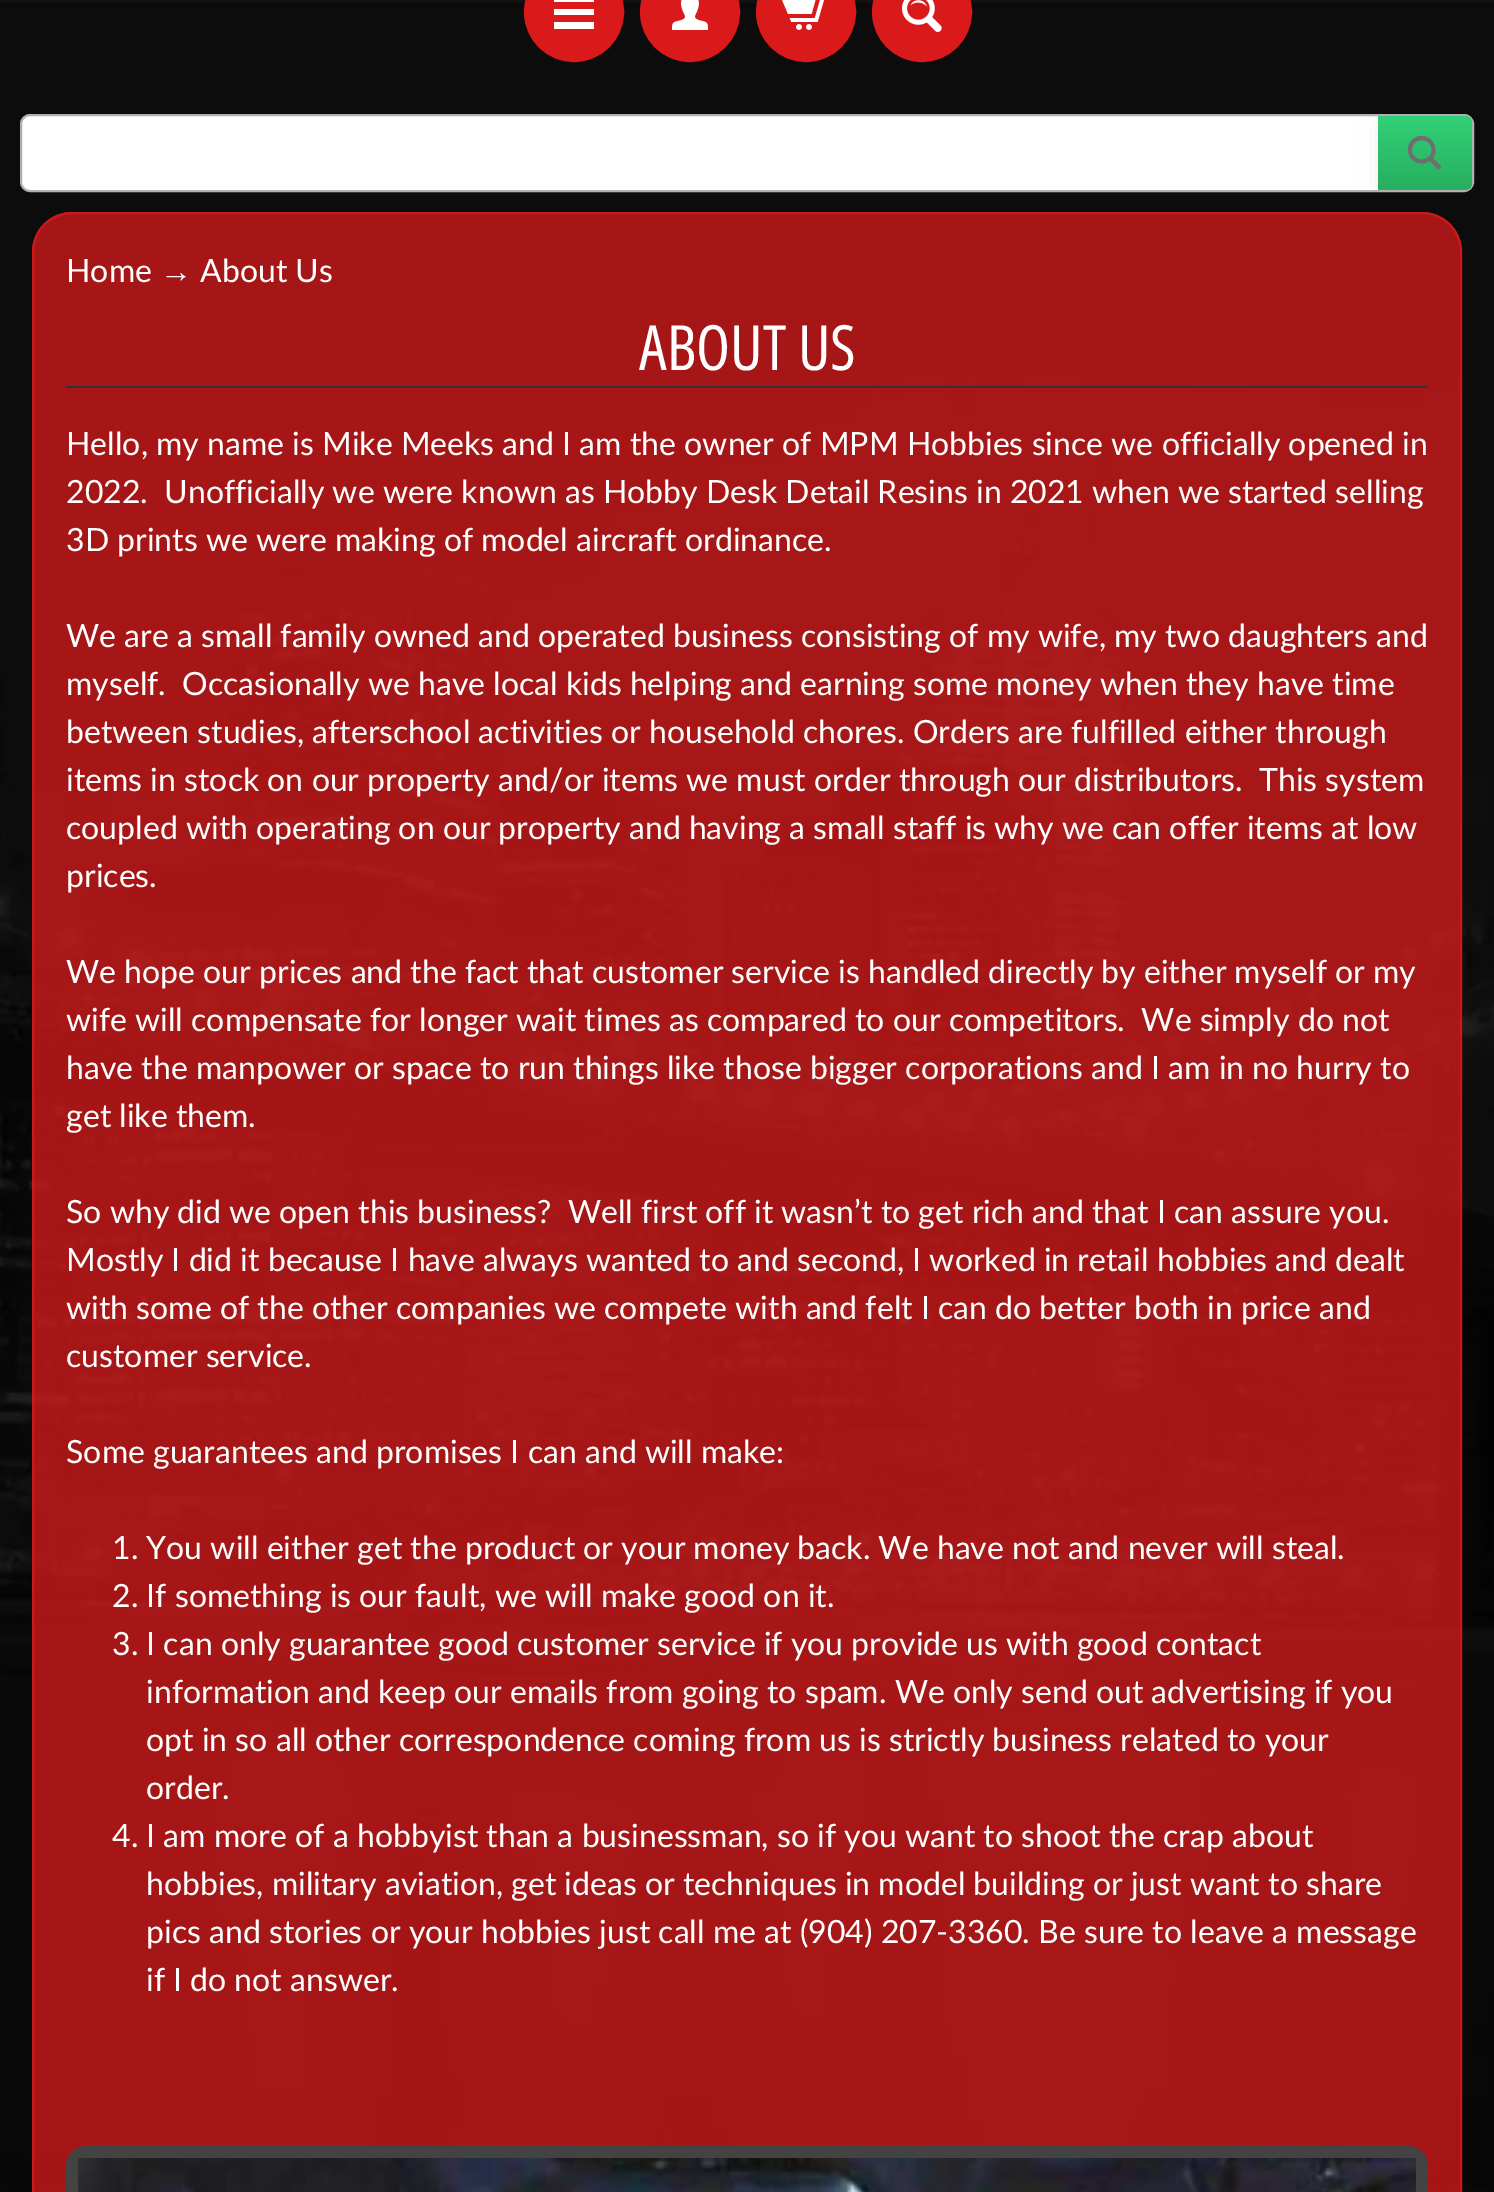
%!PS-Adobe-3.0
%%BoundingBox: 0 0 1494 2192
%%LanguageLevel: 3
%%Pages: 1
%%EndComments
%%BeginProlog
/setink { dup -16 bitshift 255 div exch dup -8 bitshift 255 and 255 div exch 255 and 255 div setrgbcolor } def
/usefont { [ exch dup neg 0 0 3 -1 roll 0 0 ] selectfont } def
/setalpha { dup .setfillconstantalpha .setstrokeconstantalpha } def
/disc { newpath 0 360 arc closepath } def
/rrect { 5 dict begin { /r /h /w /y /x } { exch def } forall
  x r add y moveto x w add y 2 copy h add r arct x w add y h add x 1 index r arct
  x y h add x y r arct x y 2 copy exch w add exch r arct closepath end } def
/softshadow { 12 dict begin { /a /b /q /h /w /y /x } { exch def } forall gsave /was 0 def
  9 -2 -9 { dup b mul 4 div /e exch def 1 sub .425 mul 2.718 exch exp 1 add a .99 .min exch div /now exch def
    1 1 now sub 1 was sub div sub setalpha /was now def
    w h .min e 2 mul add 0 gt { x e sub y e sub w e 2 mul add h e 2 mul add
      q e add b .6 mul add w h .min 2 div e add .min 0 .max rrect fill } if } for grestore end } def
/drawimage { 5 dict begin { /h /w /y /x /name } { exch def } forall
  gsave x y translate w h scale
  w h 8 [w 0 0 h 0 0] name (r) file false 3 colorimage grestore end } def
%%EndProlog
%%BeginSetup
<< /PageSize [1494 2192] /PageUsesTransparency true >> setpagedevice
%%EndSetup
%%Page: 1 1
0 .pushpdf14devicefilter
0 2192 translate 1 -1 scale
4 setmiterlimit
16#FFFFFF setink
0 0 1494 2192 rectfill
(img1.raw) 0 0 1494 2192 drawimage
16#DA1A1A setink
574 12 47 disc gsave fill grestore
6 setlinewidth
stroke
16#FFFFFF setink
594 2 moveto 554 2 lineto 554 -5 lineto 594 -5 lineto closepath 594 9 moveto 554 9 lineto 554 15 lineto 594 15 lineto closepath 594 22 moveto 554 22 lineto 554 29 lineto 594 29 lineto closepath fill
16#DA1A1A setink
690 12 47 disc gsave fill grestore
stroke
(img2.raw) 672 0 36 30 drawimage
806 12 47 disc gsave fill grestore
stroke
(img3.raw) 782 0 42 30 drawimage
922 12 47 disc gsave fill grestore
stroke
(img4.raw) 902 0 40 32 drawimage
16#FFFFFF setink
21 115 1452 76 9 rrect gsave fill grestore
16#B0B0B0 setink
2 setlinewidth
stroke
0.75 setalpha
16#DA1A1A setink
32 212 1430 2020 40 rrect fill
0.7 setalpha
33 213 1428 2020 39 rrect stroke
gsave
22 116 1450 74 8 rrect clip newpath
1 setalpha
16#000000 setink
1384 122 94 74 0 12 0.1 softshadow
grestore
1 setalpha
gsave 1378 116 moveto 1464 116 lineto 1468.5 116 1472 119.5 1472 124 curveto 1472 182 lineto 1472 186.5 1468.5 190 1464 190 curveto 1378 190 lineto closepath clip newpath
<< /ShadingType 2 /ColorSpace /DeviceRGB /Coords [1425 116 1425 190] /Extend [true true] /Function << /FunctionType 2 /Domain [0 1] /C0 [0.196 0.82 0.467] /C1 [0.153 0.682 0.376] /N 1 >> >> shfill grestore
gsave
1408 136 34 34 rectclip
16#6F6F6F setink
1441.5 166.5 moveto 1433 158 lineto 1442.5 144.5 1424 128 1412 140 curveto 1400 152 1416 170.5 1429.5 161 curveto 1438.5 170 lineto closepath 1412 150 moveto 1412 137 1431.5 137 1431.5 150 curveto 1431.5 162.5 1412 162.5 1412 150 curveto closepath fill
grestore
/Lato-Regular 32 usefont
16#FFFFFF setink
66 282 moveto (Home) show
/LiberationSans-Regular 32 usefont
160 282 moveto (→) show
/Lato-Regular 32 usefont
200 282 moveto (About Us) show
16#333333 setink
66 386 1362 2 rectfill
/OpenSansCondensed-Regular 62.5 usefont
16#FFFFFF setink
639 370 moveto (ABOUT US) show
/Lato-Regular 32 usefont
[
    [(Hello, my name is Mike Meeks and I am the owner of MPM Hobbies since we officially opened in) 66 455]
    [(2022.  Unofficially we were known as Hobby Desk Detail Resins in 2021 when we started selling) 66 503]
    [(3D prints we were making of model aircraft ordinance.) 66 551]
    [(We are a small family owned and operated business consisting of my wife, my two daughters and) 66 647]
    [(myself.  Occasionally we have local kids helping and earning some money when they have time) 66 695]
    [(between studies, afterschool activities or household chores. Orders are fulfilled either through) 66 743]
    [(items in stock on our property and/or items we must order through our distributors.  This system) 66 791]
    [(coupled with operating on our property and having a small staff is why we can offer items at low) 66 839]
    [(prices.) 66 887]
    [(We hope our prices and the fact that customer service is handled directly by either myself or my) 66 983]
    [(wife will compensate for longer wait times as compared to our competitors.  We simply do not) 66 1031]
    [(have the manpower or space to run things like those bigger corporations and I am in no hurry to) 66 1079]
    [(get like them.) 66 1127]
    [(So why did we open this business?  Well first off it wasn’t to get rich and that I can assure you.) 66 1223]
    [(Mostly I did it because I have always wanted to and second, I worked in retail hobbies and dealt) 66 1271]
    [(with some of the other companies we compete with and felt I can do better both in price and) 66 1319]
    [(customer service.) 66 1367]
    [(Some guarantees and promises I can and will make:) 66 1463]
    [(1. You will either get the product or your money back. We have not and never will steal.) 112 1559]
    [(2. If something is our fault, we will make good on it.) 112 1607]
    [(3. I can only guarantee good customer service if you provide us with good contact) 112 1655]
    [(information and keep our emails from going to spam. We only send out advertising if you) 146 1703]
    [(opt in so all other correspondence coming from us is strictly business related to your) 146 1751]
    [(order.) 146 1799]
    [(4. I am more of a hobbyist than a businessman, so if you want to shoot the crap about) 112 1847]
    [(hobbies, military aviation, get ideas or techniques in model building or just want to share) 146 1895]
    [(pics and stories or your hobbies just call me at \(904\) 207-3360. Be sure to leave a message) 146 1943]
    [(if I do not answer.) 146 1991]
] { aload pop moveto show } forall
16#434343 setink
66 2146 1362 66 20 rrect fill
(img5.raw) 78 2158 1338 34 drawimage
.poppdf14devicefilter showpage
%%EOF
